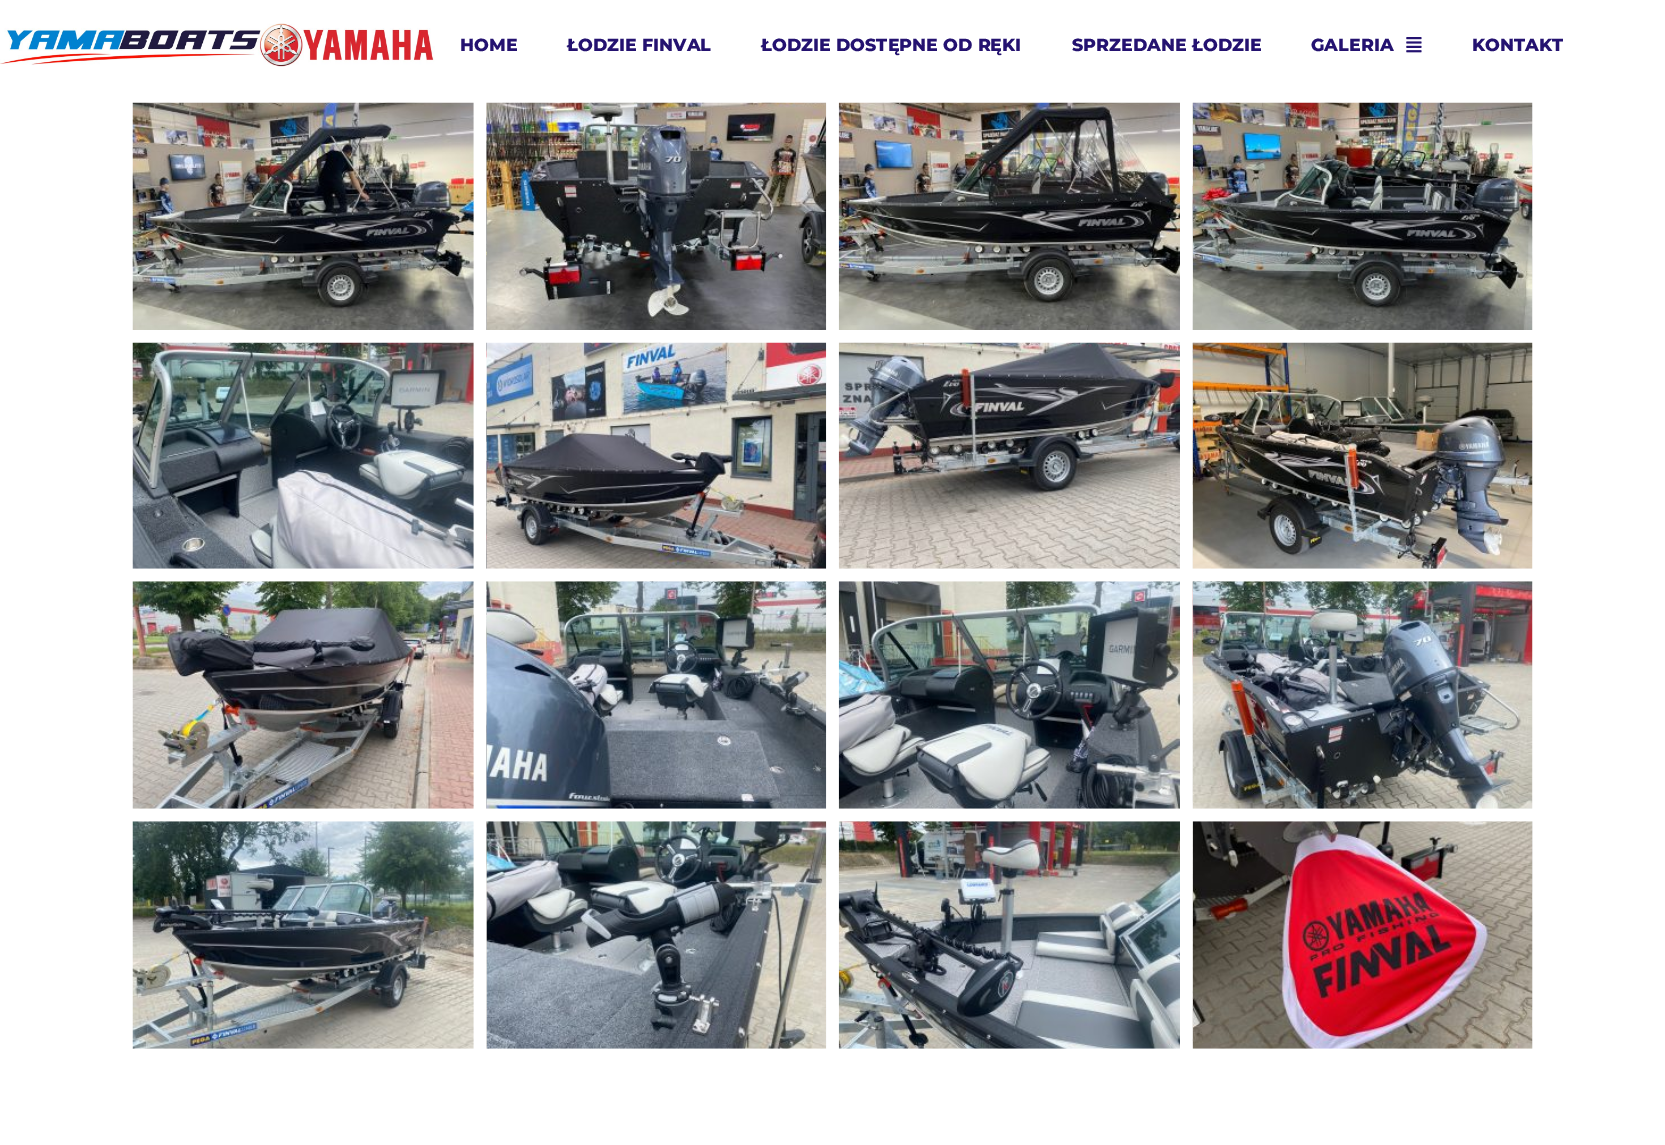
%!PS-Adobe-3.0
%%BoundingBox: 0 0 1665 1145
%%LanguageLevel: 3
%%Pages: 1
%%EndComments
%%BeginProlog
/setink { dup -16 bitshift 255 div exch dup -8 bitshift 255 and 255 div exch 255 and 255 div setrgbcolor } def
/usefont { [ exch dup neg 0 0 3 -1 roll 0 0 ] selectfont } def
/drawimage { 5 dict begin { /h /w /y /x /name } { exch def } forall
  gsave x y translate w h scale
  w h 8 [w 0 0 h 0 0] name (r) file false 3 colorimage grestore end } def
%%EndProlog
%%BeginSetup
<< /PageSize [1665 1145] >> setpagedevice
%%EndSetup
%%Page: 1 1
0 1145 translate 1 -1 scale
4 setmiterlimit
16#FFFFFF setink
0 0 1665 1145 rectfill
(img1.raw) 0 23 435 44 drawimage
/Montserrat-ExtraBold 17.5 usefont
16#241270 setink
[
    [(HOME) 460 51]
    [(ŁODZIE FINVAL) 567 51]
    [(ŁODZIE DOSTĘPNE OD RĘKI) 761 51]
    [(SPRZEDANE ŁODZIE) 1072 51]
    [(GALERIA) 1311 51]
] { aload pop moveto show } forall
(img2.raw) 1406 37 16 16 drawimage
1472 51 moveto (KONTAKT) show
(img3.raw) 132 102 342 228 drawimage
(img4.raw) 486 102 341 228 drawimage
(img5.raw) 838 102 342 228 drawimage
(img6.raw) 1192 102 341 228 drawimage
(img7.raw) 132 342 342 227 drawimage
(img8.raw) 486 342 341 227 drawimage
(img9.raw) 838 342 342 227 drawimage
(img10.raw) 1192 342 341 227 drawimage
(img11.raw) 132 581 342 228 drawimage
(img12.raw) 486 581 341 228 drawimage
(img13.raw) 838 581 342 228 drawimage
(img14.raw) 1192 581 341 228 drawimage
(img15.raw) 132 821 342 228 drawimage
(img16.raw) 486 821 341 228 drawimage
(img17.raw) 838 821 342 228 drawimage
(img18.raw) 1192 821 341 228 drawimage
showpage
%%EOF
